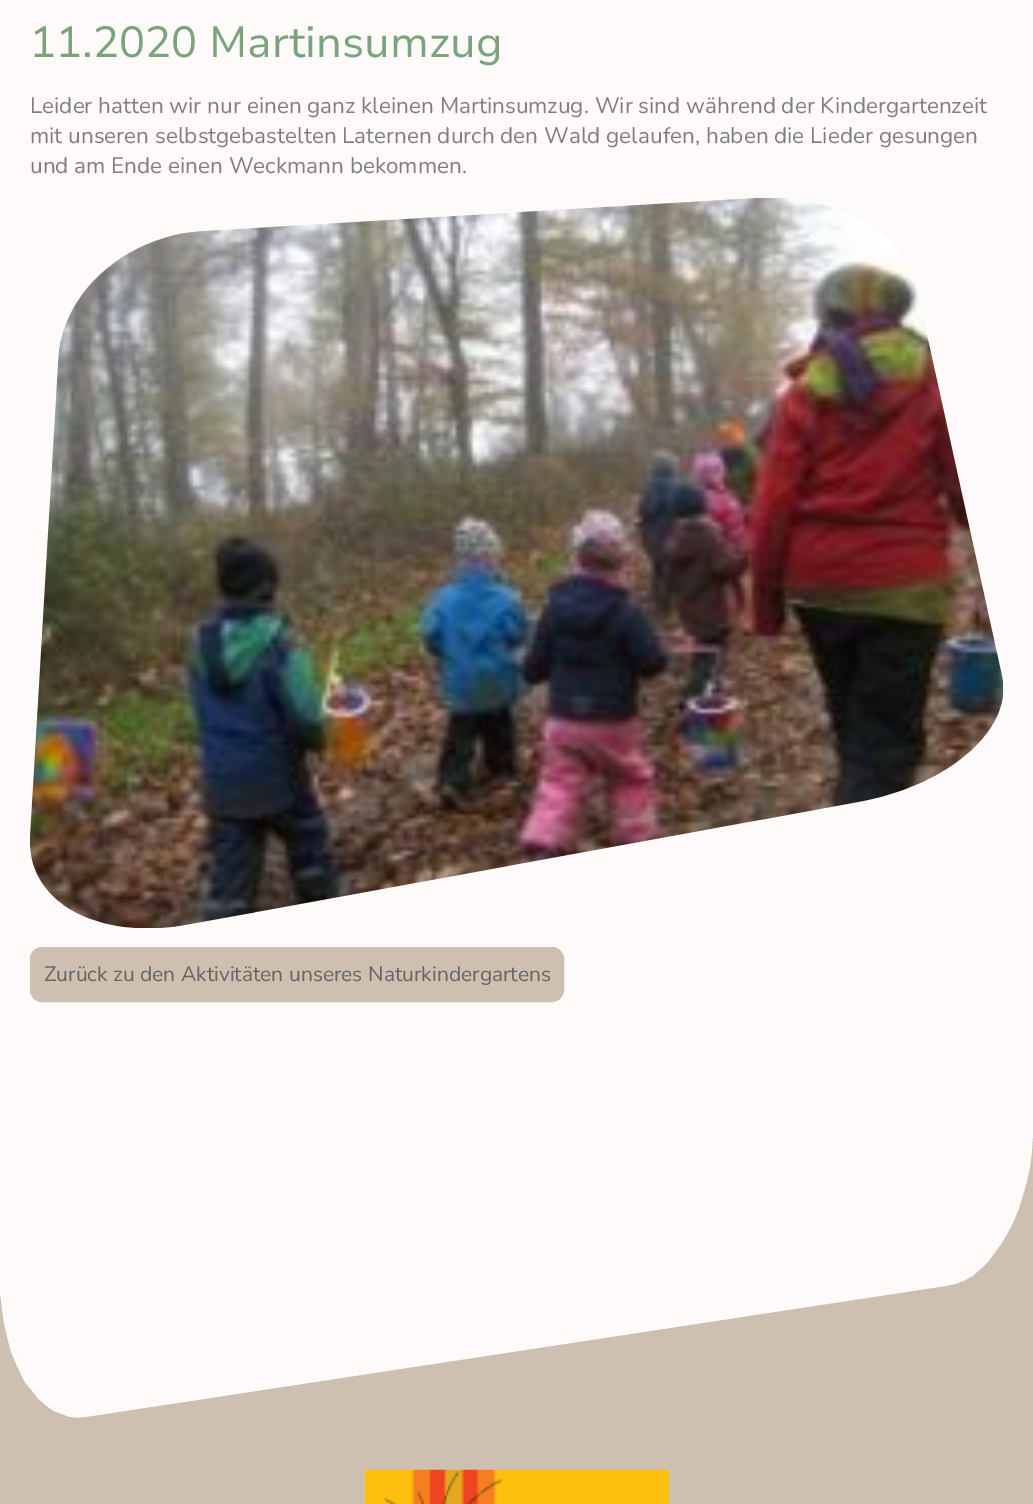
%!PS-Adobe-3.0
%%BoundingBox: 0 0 1033 1504
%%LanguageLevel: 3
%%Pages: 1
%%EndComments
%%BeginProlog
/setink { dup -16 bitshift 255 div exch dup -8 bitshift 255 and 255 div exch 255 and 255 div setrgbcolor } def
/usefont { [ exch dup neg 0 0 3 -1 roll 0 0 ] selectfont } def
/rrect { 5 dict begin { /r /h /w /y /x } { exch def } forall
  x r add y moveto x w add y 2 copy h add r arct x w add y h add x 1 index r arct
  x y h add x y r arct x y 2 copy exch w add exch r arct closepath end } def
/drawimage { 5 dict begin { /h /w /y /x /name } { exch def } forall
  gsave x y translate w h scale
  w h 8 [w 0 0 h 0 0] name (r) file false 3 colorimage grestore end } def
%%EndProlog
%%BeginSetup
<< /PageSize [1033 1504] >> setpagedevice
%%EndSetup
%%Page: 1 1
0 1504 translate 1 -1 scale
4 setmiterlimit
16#FFFAFA setink
0 0 1033 1504 rectfill
/NunitoSans-Regular 43.5 usefont
16#7CA47C setink
30 57 moveto (11.2020 Martinsumzug) show
/Nunito-Regular 22.5 usefont
16#7F7F7F setink
[
    [(Leider hatten wir nur einen ganz kleinen Martinsumzug. Wir sind während der Kindergartenzeit) 30 113]
    [(mit unseren selbstgebastelten Laternen durch den Wald gelaufen, haben die Lieder gesungen) 30 143]
    [(und am Ende einen Weckmann bekommen.) 30 173]
] { aload pop moveto show } forall
(img1.raw) 30 198 974 730 drawimage
16#CDC0B0 setink
31 948 532 53 11 rrect gsave fill grestore
2 setlinewidth
stroke
/Nunito-Regular 21 usefont
16#666666 setink
44 981 moveto (Zurück zu den Aktivitäten unseres Naturkindergartens) show
16#CDC0B0 setink
0 1280 moveto 0 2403 lineto 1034 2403 lineto 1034 1122 lineto 1033 1138 lineto 1032 1153 lineto 1030 1168 lineto 1027 1182 lineto 1023 1196 lineto 1019 1209 lineto 1014 1221 lineto 1008 1233 lineto 1002 1243 lineto 995 1253 lineto 988 1262 lineto 981 1269 lineto 973 1276 lineto 964 1281 lineto 956 1284 lineto 947 1286 lineto 87 1417 lineto 78 1418 lineto 69 1417 lineto 61 1414 lineto 53 1411 lineto 45 1405 lineto 38 1399 lineto 32 1391 lineto 25 1383 lineto 20 1373 lineto 15 1362 lineto 10 1350 lineto 7 1337 lineto 4 1324 lineto 2 1310 lineto 0 1295 lineto closepath fill
(img2.raw) 364 1469 305 35 drawimage
showpage
%%EOF
